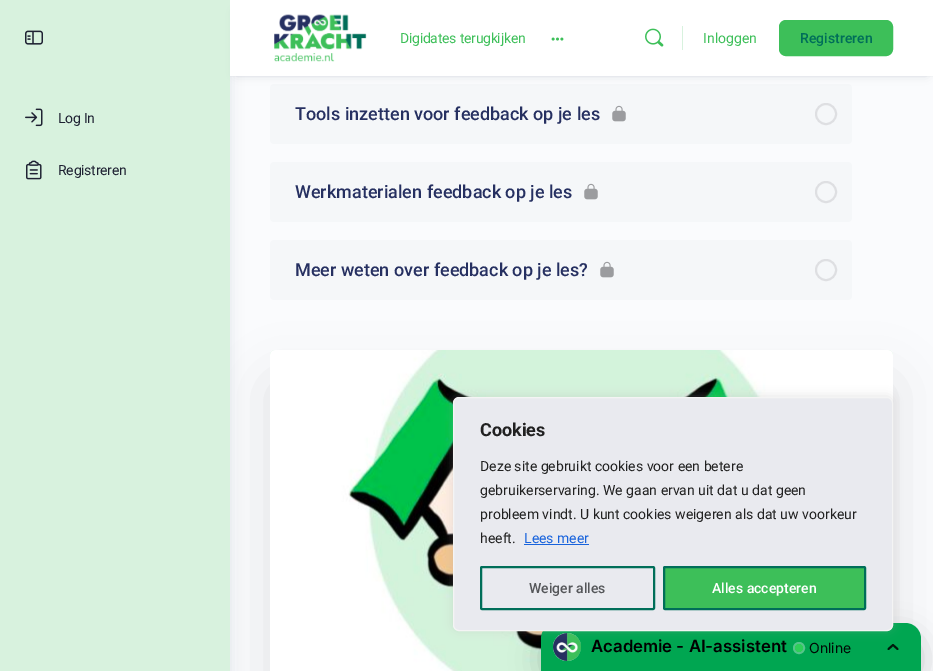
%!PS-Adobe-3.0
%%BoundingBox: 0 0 933 671
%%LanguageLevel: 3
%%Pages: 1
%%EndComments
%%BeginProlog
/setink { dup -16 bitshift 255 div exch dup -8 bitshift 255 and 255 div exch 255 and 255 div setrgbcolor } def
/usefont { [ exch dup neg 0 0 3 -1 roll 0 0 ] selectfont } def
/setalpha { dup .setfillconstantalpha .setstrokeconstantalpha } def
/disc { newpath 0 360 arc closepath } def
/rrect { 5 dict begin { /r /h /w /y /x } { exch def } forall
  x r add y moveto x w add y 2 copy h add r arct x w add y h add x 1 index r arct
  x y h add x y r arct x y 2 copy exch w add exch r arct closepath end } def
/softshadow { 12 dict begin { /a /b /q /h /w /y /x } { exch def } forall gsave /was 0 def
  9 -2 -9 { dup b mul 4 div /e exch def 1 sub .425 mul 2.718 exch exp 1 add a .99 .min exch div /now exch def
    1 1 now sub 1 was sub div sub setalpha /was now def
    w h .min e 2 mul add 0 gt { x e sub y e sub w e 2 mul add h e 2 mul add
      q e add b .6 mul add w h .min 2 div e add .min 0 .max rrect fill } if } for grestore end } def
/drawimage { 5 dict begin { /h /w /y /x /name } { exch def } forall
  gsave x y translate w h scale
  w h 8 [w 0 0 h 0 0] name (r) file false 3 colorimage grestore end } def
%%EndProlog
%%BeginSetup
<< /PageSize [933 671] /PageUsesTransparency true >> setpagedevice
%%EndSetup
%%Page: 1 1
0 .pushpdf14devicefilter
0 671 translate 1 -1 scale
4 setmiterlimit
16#FAFBFD setink
0 0 933 671 rectfill
16#122B46 setink
0 3 230 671 0 6.5 0.1 softshadow
16#000000 setink
270 382 623 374 4 27 0.1 softshadow
16#D8F2DE setink
0 0 230 671 rectfill
(img1.raw) 25 30 18 15 drawimage
(img2.raw) 25 108 18 19 drawimage
/Roboto-Regular 14 usefont
16#1E2132 setink
58 123 moveto -0.25 0 (Log In) ashow
(img3.raw) 26 160 16 20 drawimage
58 175 moveto -0.25 0 (Registreren) ashow
16#F5F7F9 setink
270 84 582 60 4 rrect fill
16#41476C setink
237 12 689 62 0 5 0.25 softshadow
0.05 setalpha
16#8B8D9D setink
230 76 703 1 rectfill
1 setalpha
16#FFFFFF setink
230 0 703 76 rectfill
(img4.raw) 274 14 93 48 drawimage
16#3DBF59 setink
400 43 moveto -0.25 0 (Digidates terugkijken) ashow
(img5.raw) 551 37 13 4 drawimage
(img6.raw) 645 28 19 19 drawimage
16#D8F2DE setink
682 26 1 24 rectfill
16#3DBF59 setink
703 43 moveto (Inloggen) show
779.5 20.5 113 35 6.5 rrect gsave fill grestore
stroke
/Roboto-Medium 14 usefont
16#006E59 setink
800 43 moveto (Registreren) show
/Roboto-Medium 18 usefont
16#263061 setink
295 120 moveto (Tools inzetten voor feedback op je les) show
(img7.raw) 612 105 14 17 drawimage
16#DEDFE2 setink
2 setlinewidth
826 114 10 disc stroke
16#F5F7F9 setink
270 162 582 60 4 rrect fill
16#263061 setink
295 198 moveto (Werkmaterialen feedback op je les) show
(img7.raw) 584 183 14 17 drawimage
16#DEDFE2 setink
826 192 10 disc stroke
16#F5F7F9 setink
270 240 582 60 4 rrect fill
16#263061 setink
295 276 moveto (Meer weten over feedback op je les?) show
(img7.raw) 600 261 14 17 drawimage
16#DEDFE2 setink
826 270 10 disc stroke
(img8.raw) 270 350 623 321 drawimage
16#000000 setink
541 635 380 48 16 15 0.18 softshadow
16#00A651 setink
557 623 moveto 905 623 lineto 914 623 921 630 921 639 curveto 921 671 lineto 541 671 lineto 541 639 lineto 541 630 548 623 557 623 curveto closepath fill
(img9.raw) 553 633 28 28 drawimage
16#55C48B setink
799 648 5 disc stroke
16#2ECF58 setink
799 648 4 disc fill
16#00190C setink
1.9 setlinewidth
1 setlinecap
1 setlinejoin
897.5 649 moveto 893 645 lineto 888.5 649 lineto stroke
16#ACABAB setink
453 396 440 234 6 5 0.3 softshadow
16#E9EAEF setink
453.5 397.5 439 233 5.5 rrect gsave fill grestore
16#F4F4F4 setink
1 setlinewidth
0 setlinecap
0 setlinejoin
stroke
/Roboto-Bold 18 usefont
16#212121 setink
480 436 moveto (Cookies) show
/Roboto-Regular 14 usefont
[
    [(Deze site gebruikt cookies voor een betere) 480 471]
    [(gebruikerservaring. We gaan ervan uit dat u dat geen) 480 495]
    [(probleem vindt. U kunt cookies weigeren als dat uw voorkeur) 480 519]
    [(heeft.) 480 543]
] { aload pop moveto show } forall
16#1863DC setink
524 543 moveto (Lees meer) show
524 544 65 1 rectfill
16#006E59 setink
2 setlinewidth
481 567 173 42 1 rrect stroke
/Roboto-Medium 14 usefont
16#545659 setink
529 593 moveto (Weiger alles) show
16#3DBF59 setink
664 567 201 42 1 rrect gsave fill grestore
16#006E59 setink
stroke
16#FFFFFF setink
712 593 moveto (Alles accepteren) show
/Inter-SemiBold 16.75 usefont
16#000000 setink
591 652 moveto (Academie - AI-assistent) show
/Inter-Regular 14 usefont
16#000804 setink
809 653 moveto (Online) show
.poppdf14devicefilter showpage
%%EOF
